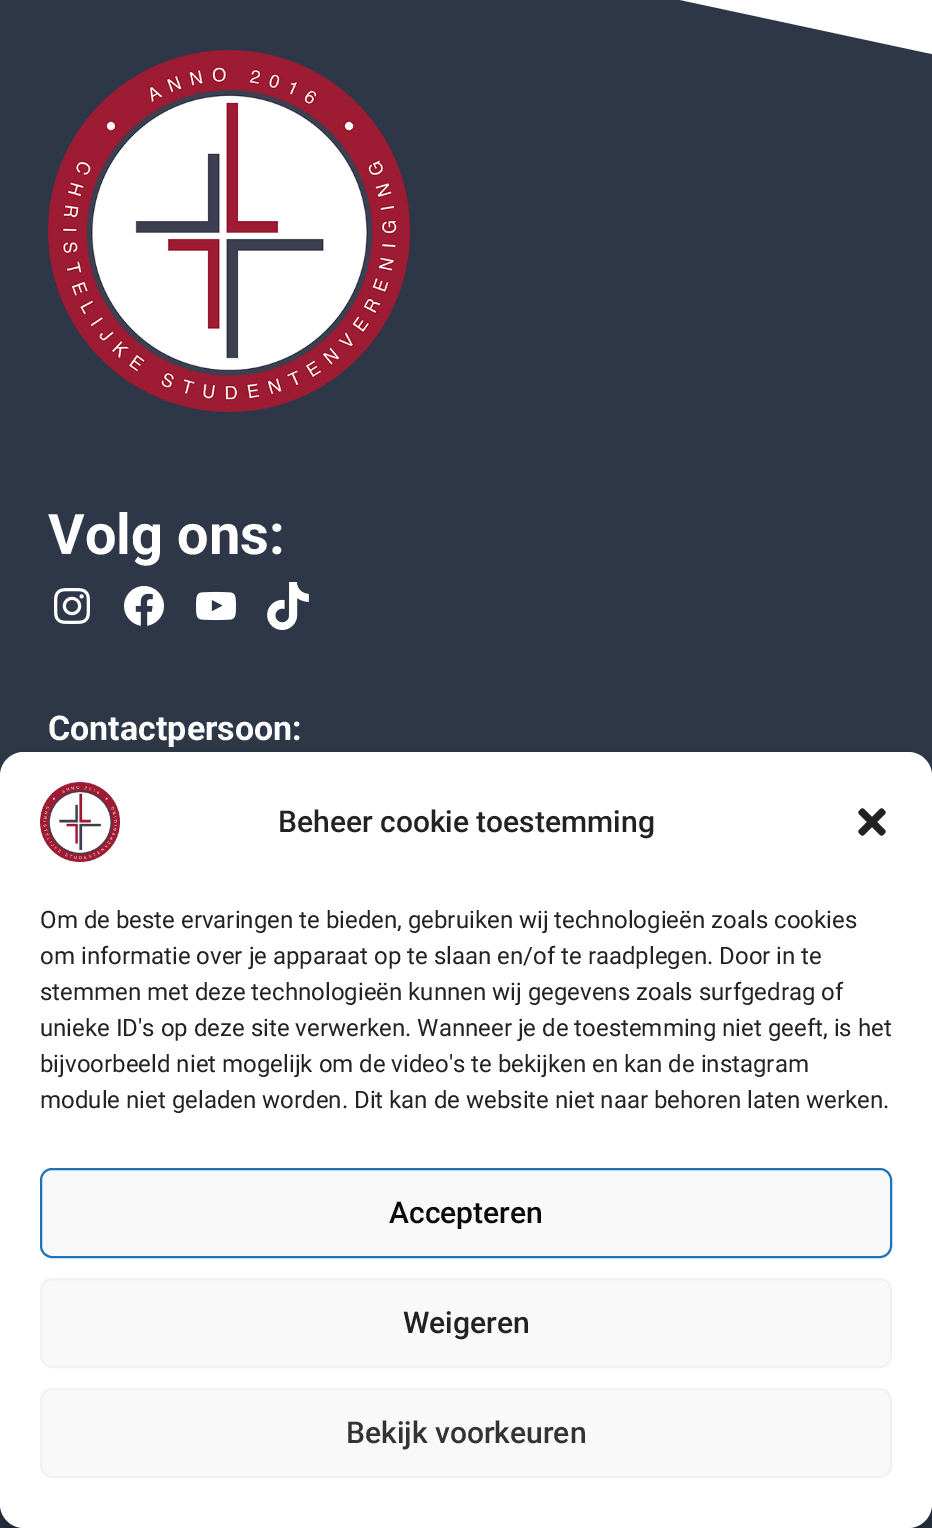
%!PS-Adobe-3.0
%%BoundingBox: 0 0 932 1528
%%LanguageLevel: 3
%%Pages: 1
%%EndComments
%%BeginProlog
/setink { dup -16 bitshift 255 div exch dup -8 bitshift 255 and 255 div exch 255 and 255 div setrgbcolor } def
/usefont { [ exch dup neg 0 0 3 -1 roll 0 0 ] selectfont } def
/setalpha { dup .setfillconstantalpha .setstrokeconstantalpha } def
/rrect { 5 dict begin { /r /h /w /y /x } { exch def } forall
  x r add y moveto x w add y 2 copy h add r arct x w add y h add x 1 index r arct
  x y h add x y r arct x y 2 copy exch w add exch r arct closepath end } def
/softshadow { 12 dict begin { /a /b /q /h /w /y /x } { exch def } forall gsave /was 0 def
  9 -2 -9 { dup b mul 4 div /e exch def 1 sub .425 mul 2.718 exch exp 1 add a .99 .min exch div /now exch def
    1 1 now sub 1 was sub div sub setalpha /was now def
    w h .min e 2 mul add 0 gt { x e sub y e sub w e 2 mul add h e 2 mul add
      q e add b .6 mul add w h .min 2 div e add .min 0 .max rrect fill } if } for grestore end } def
/drawimage { 5 dict begin { /h /w /y /x /name } { exch def } forall
  gsave x y translate w h scale
  w h 8 [w 0 0 h 0 0] name (r) file false 3 colorimage grestore end } def
%%EndProlog
%%BeginSetup
<< /PageSize [932 1528] /PageUsesTransparency true >> setpagedevice
%%EndSetup
%%Page: 1 1
0 .pushpdf14devicefilter
0 1528 translate 1 -1 scale
4 setmiterlimit
16#2D3748 setink
0 0 932 1528 rectfill
16#FFFFFF setink
932 54 moveto 0 -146 lineto 932 -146 lineto closepath fill
(img1.raw) 48 50 362 362 drawimage
/Roboto-Bold 56 usefont
48 554 moveto (Volg ons:) show
(img2.raw) 54 588 36 36 drawimage
(img3.raw) 124 586 40 40 drawimage
(img4.raw) 196 591 40 30 drawimage
(img5.raw) 267 582 42 48 drawimage
/Roboto-Bold 34 usefont
48 740 moveto (Contactpersoon:) show
16#000000 setink
0 764 932 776 24 6 0.23 softshadow
0 772 932 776 24 20 0.19 softshadow
16#808080 setink
792 1380 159 120 4 5 1 softshadow
16#FFFFFF setink
0 752 932 776 24 rrect fill
(img6.raw) 40 782 80 80 drawimage
/Roboto-Medium 30 usefont
16#222222 setink
278 832 moveto (Beheer cookie toestemming) show
(img7.raw) 858 808 28 28 drawimage
/Roboto-Regular 24 usefont
[
    [(Om de beste ervaringen te bieden, gebruiken wij technologieën zoals cookies) 40 928]
    [(om informatie over je apparaat op te slaan en/of te raadplegen. Door in te) 40 964]
    [(stemmen met deze technologieën kunnen wij gegevens zoals surfgedrag of) 40 1000]
    [(unieke ID's op deze site verwerken. Wanneer je de toestemming niet geeft, is het) 40 1036]
    [(bijvoorbeeld niet mogelijk om de video's te bekijken en kan de instagram) 40 1072]
    [(module niet geladen worden. Dit kan de website niet naar behoren laten werken.) 40 1108]
] { aload pop moveto show } forall
16#F9F9F9 setink
41 1169 850 88 11 rrect gsave fill grestore
16#1E73BE setink
2 setlinewidth
stroke
/Roboto-Medium 30 usefont
16#0A0A0A setink
389 1223 moveto (Accepteren) show
16#F9F9F9 setink
41 1279 850 88 11 rrect gsave fill grestore
16#F2F2F2 setink
stroke
16#222222 setink
403 1333 moveto (Weigeren) show
16#F9F9F9 setink
41 1389 850 88 11 rrect gsave fill grestore
16#F2F2F2 setink
stroke
16#333333 setink
346 1443 moveto (Bekijk voorkeuren) show
.poppdf14devicefilter showpage
%%EOF
